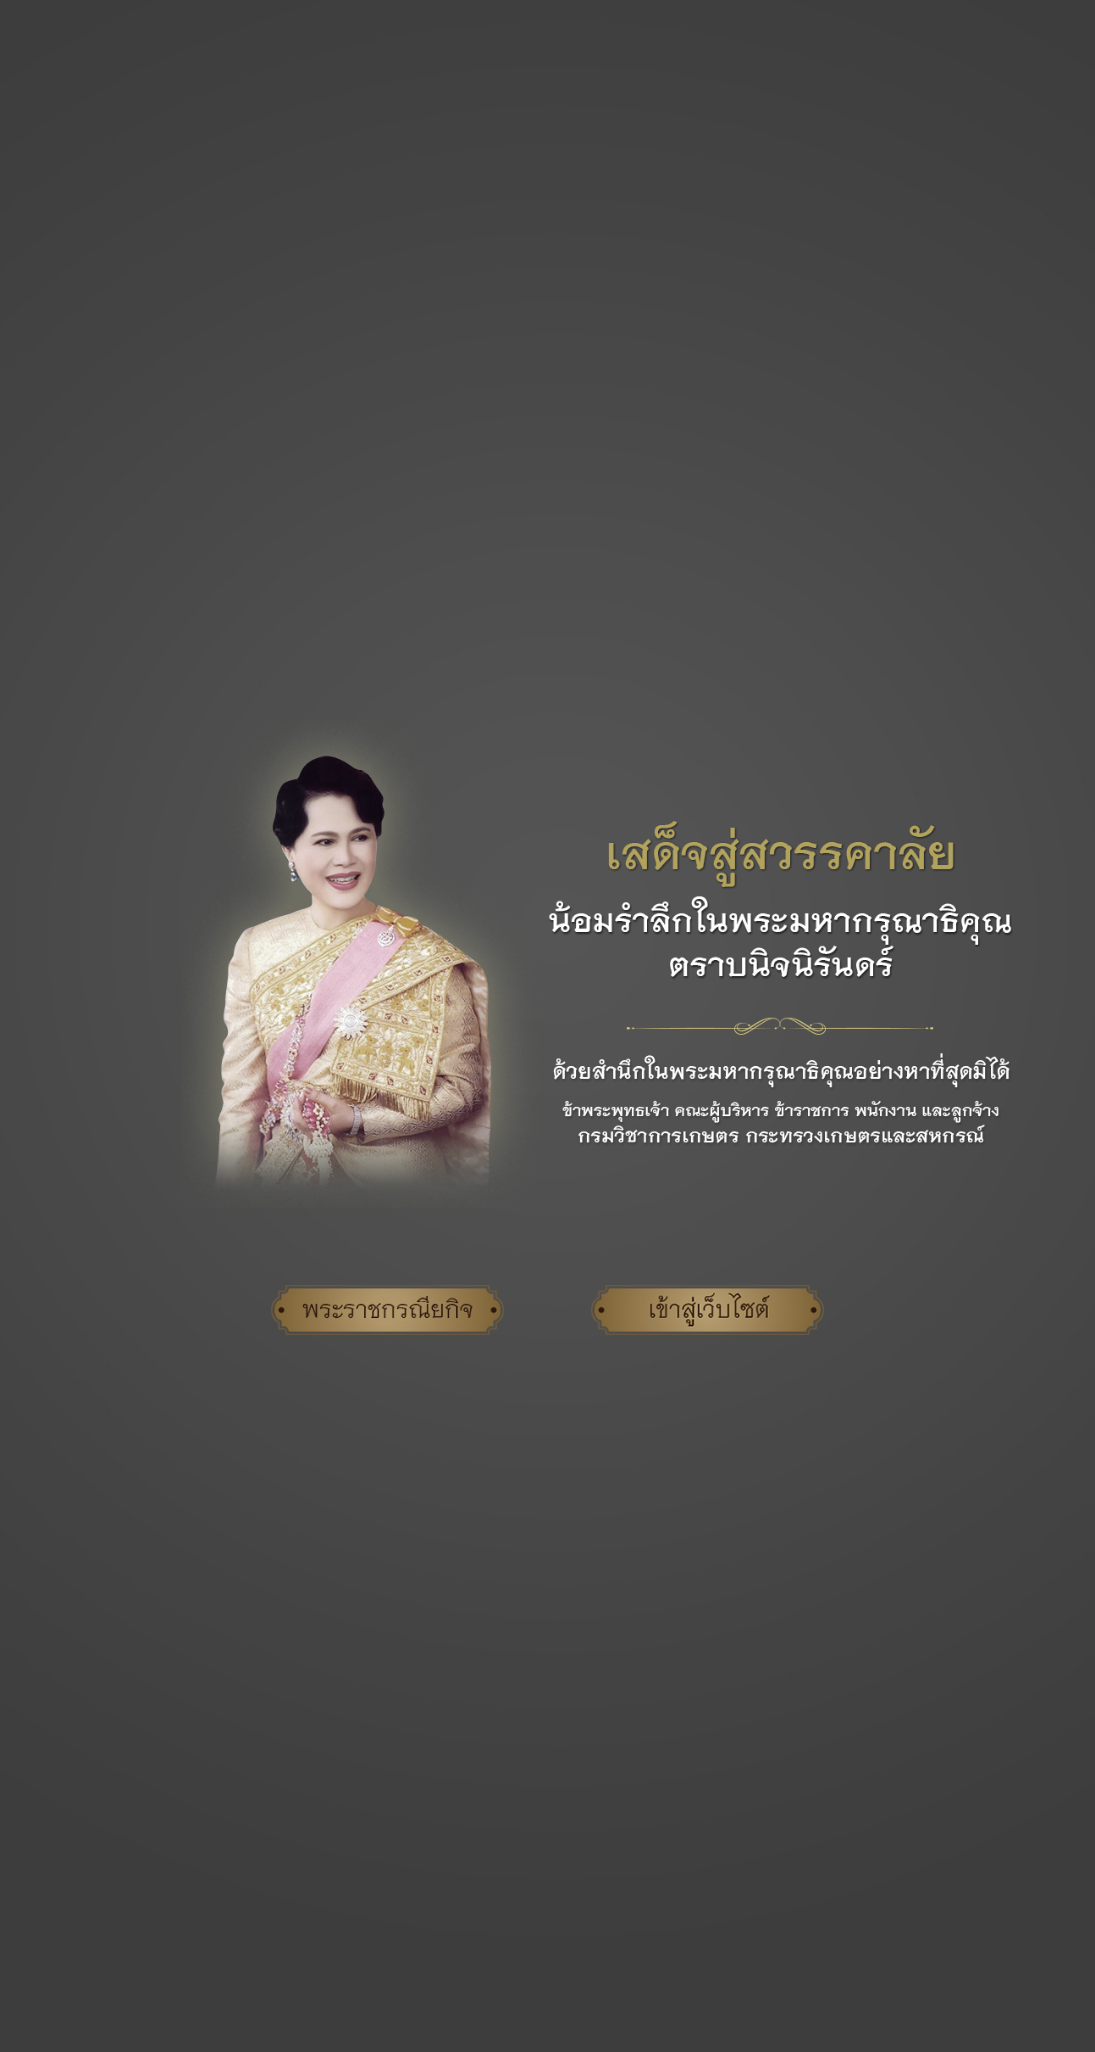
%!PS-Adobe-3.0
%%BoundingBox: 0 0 1095 2052
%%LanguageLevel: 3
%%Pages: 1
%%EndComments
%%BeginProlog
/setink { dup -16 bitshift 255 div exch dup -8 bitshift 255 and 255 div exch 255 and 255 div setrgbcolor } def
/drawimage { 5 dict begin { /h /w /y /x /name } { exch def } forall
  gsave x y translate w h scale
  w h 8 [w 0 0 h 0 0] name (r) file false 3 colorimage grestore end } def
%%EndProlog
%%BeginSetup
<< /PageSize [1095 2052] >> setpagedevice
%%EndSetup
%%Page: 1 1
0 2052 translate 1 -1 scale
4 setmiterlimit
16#FFFFFF setink
0 0 1095 2052 rectfill
(img1.raw) 0 0 1095 2052 drawimage
(img2.raw) 181 720 832 488 drawimage
(img3.raw) 271 1285 233 50 drawimage
(img4.raw) 591 1285 233 50 drawimage
showpage
%%EOF
